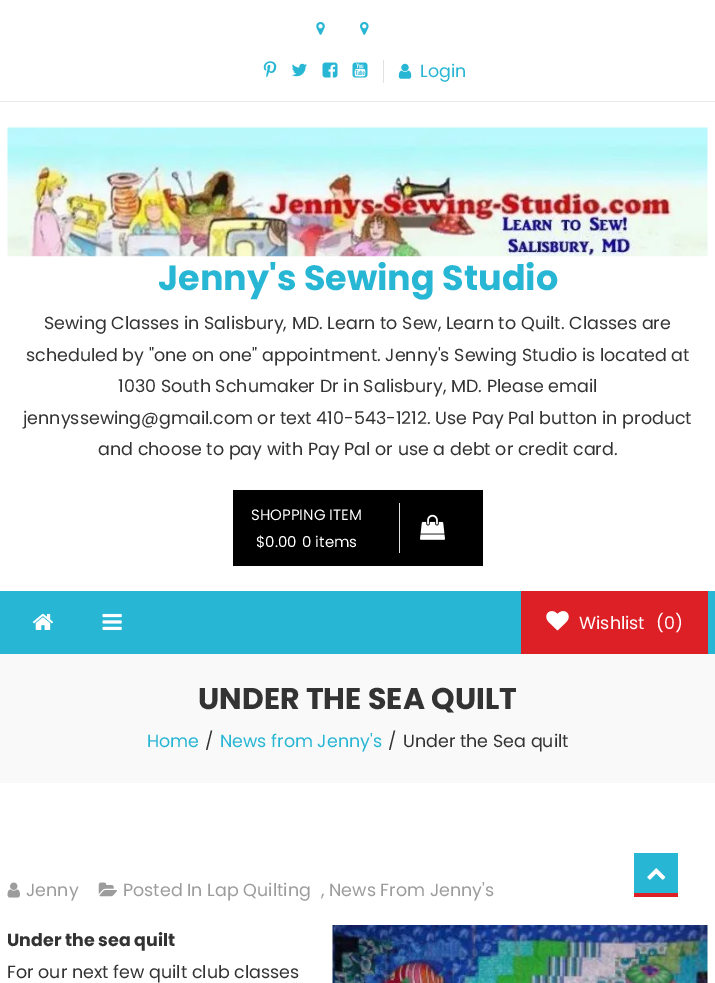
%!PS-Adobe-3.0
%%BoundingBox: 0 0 715 983
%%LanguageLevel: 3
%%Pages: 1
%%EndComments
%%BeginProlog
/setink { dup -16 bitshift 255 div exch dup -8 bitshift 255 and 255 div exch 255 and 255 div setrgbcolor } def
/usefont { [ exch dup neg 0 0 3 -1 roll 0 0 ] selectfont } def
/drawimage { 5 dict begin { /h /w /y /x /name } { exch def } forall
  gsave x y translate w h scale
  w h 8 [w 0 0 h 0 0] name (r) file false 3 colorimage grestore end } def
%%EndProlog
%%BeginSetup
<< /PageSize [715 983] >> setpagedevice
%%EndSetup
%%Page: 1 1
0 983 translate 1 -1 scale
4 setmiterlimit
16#FFFFFF setink
0 0 715 983 rectfill
16#EAEAEA setink
0 101 715 1 rectfill
(img1.raw) 316 22 9 13 drawimage
(img2.raw) 360 22 9 13 drawimage
(img3.raw) 263 61 14 17 drawimage
(img4.raw) 292 63 15 14 drawimage
(img5.raw) 322 62 16 16 drawimage
(img6.raw) 352 62 16 16 drawimage
16#E1E1E1 setink
383 60 1 23 rectfill
(img7.raw) 398 63 14 16 drawimage
/Poppins-Regular 17.5 usefont
16#27B6D4 setink
420 77 moveto (Login) show
(img8.raw) 7 127 701 130 drawimage
/Poppins-Bold 35 usefont
158 290 moveto (Jenny's Sewing Studio) show
/Poppins-Regular 17.5 usefont
16#333333 setink
[
    [(Sewing Classes in Salisbury, MD. Learn to Sew, Learn to Quilt. Classes are) 44 329]
    [(scheduled by "one on one" appointment. Jenny's Sewing Studio is located at) 26 361]
    [(1030 South Schumaker Dr in Salisbury, MD. Please email) 118 392]
    [(jennyssewing@gmail.com or text 410-543-1212. Use Pay Pal button in product) 23 424]
    [(and choose to pay with Pay Pal or use a debt or credit card.) 98 455]
] { aload pop moveto show } forall
16#000000 setink
233 490 250 76 rectfill
/Poppins-Regular 15 usefont
16#FFFFFF setink
[
    [(SHOPPING ITEM) 251 520]
    [($0.00) 256 547]
    [(0 items) 302 547]
] { aload pop moveto show } forall
16#E1E1E1 setink
399 503 1 50 rectfill
(img9.raw) 420 514 25 26 drawimage
16#27B6D4 setink
0 591 715 63 rectfill
(img10.raw) 32 613 21 17 drawimage
(img11.raw) 102 613 20 17 drawimage
16#DD1F26 setink
521 591 187 63 rectfill
(img12.raw) 546 611 23 20 drawimage
/Poppins-Regular 17.5 usefont
16#FFFFFF setink
579 629 moveto (Wishlist) show
656 629 moveto (\(0\)) show
16#F9F9F9 setink
0 654 715 129 rectfill
/Poppins-Bold 30 usefont
16#333333 setink
198 709 moveto (UNDER THE SEA QUILT) show
/Poppins-Regular 17.5 usefont
16#27B6D4 setink
147 747 moveto (Home) show
16#333333 setink
205 747 moveto (/) show
16#27B6D4 setink
220 747 moveto (News from Jenny's) show
16#333333 setink
388 747 moveto (/) show
403 747 moveto (Under the Sea quilt) show
16#27B6D4 setink
634 853 44 40 rectfill
16#DD1F26 setink
634 893 44 4 rectfill
(img13.raw) 647 868 19 12 drawimage
(img14.raw) 7 882 13 16 drawimage
16#9C9C9C setink
26 896 moveto (Jenny) show
(img15.raw) 98 882 19 15 drawimage
123 896 moveto (Posted In Lap Quilting) show
321 896 moveto (, News From Jenny's) show
/Poppins-Bold 17.5 usefont
16#333333 setink
7 946 moveto (Under the sea quilt) show
/Poppins-Regular 17.5 usefont
7 978 moveto (For our next few quilt club classes) show
(img16.raw) 332 925 376 58 drawimage
showpage
%%EOF
